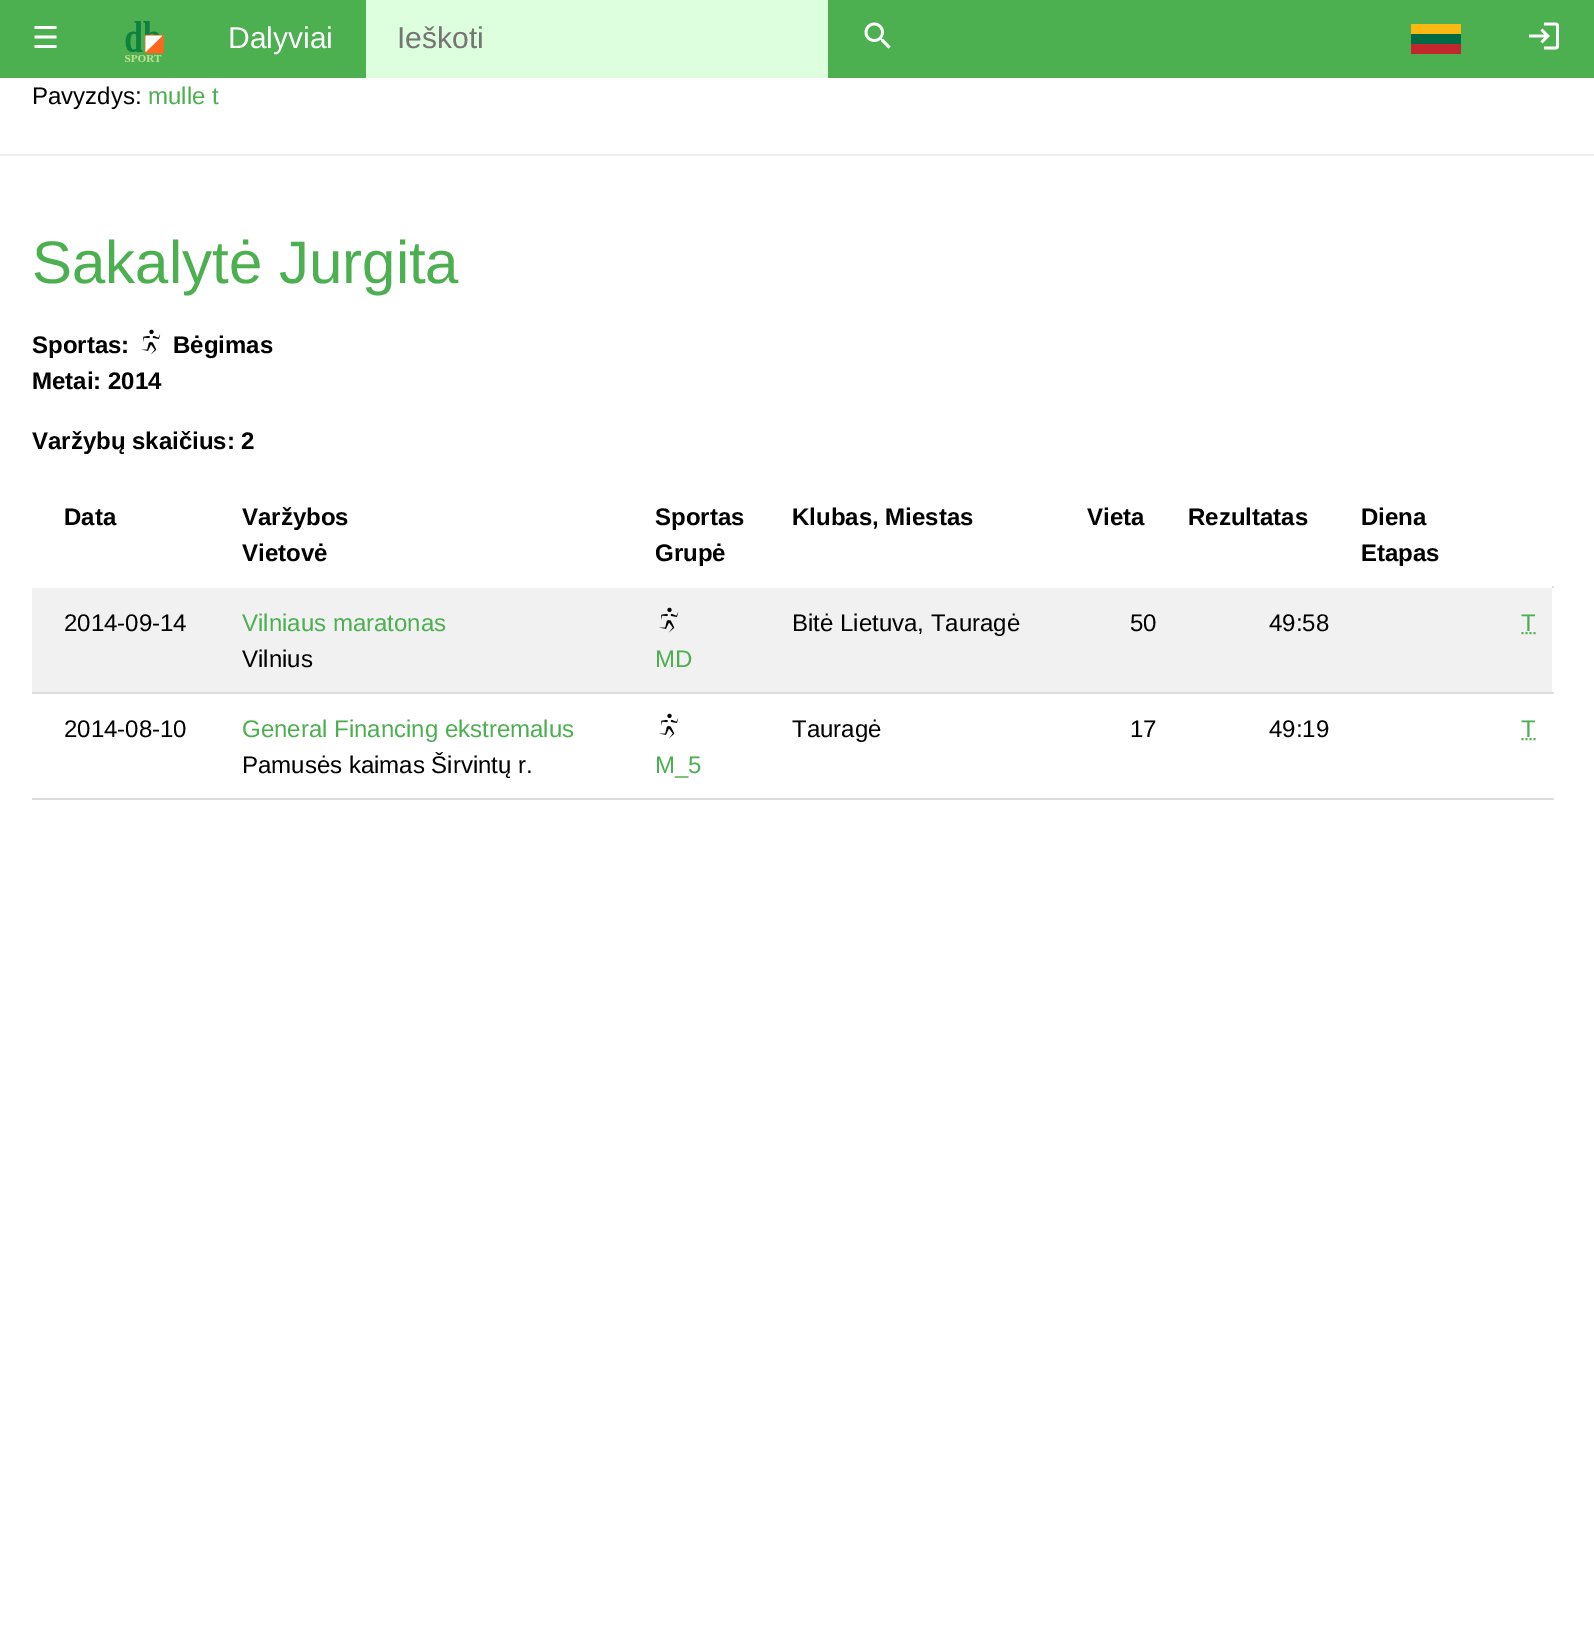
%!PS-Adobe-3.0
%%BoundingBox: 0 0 1594 1630
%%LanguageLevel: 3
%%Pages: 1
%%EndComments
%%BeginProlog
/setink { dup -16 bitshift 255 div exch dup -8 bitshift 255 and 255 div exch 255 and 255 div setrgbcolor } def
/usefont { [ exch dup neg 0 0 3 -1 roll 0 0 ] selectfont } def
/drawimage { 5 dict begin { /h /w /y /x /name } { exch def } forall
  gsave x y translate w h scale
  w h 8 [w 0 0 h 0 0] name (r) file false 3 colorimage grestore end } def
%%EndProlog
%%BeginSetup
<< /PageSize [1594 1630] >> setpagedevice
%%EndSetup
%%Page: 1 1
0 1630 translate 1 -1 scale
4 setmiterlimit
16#FFFFFF setink
0 0 1594 1630 rectfill
16#4CAF50 setink
0 0 1594 78 rectfill
/DejaVuSans-Regular 30 usefont
16#FFFFFF setink
32 48 moveto (☰) show
(img1.raw) 125 21 39 41 drawimage
/LiberationSans-Regular 30 usefont
228 48 moveto (Dalyviai) show
16#DDFFDD setink
366 0 462 78 rectfill
16#757575 setink
397 48 moveto (Ieškoti) show
(img2.raw) 864 22 27 27 drawimage
[
    [1411 24 50 10 16#FDB913]
    [1411 34 50 10 16#006A44]
    [1411 44 50 10 16#C1272D]
] { aload pop setink rectfill } forall
(img3.raw) 1529 22 30 28 drawimage
/LiberationSans-Regular 24 usefont
16#000000 setink
32 104 moveto (Pavyzdys:) show
16#4CAF50 setink
148 104 moveto (mulle t) show
16#EEEEEE setink
0 154 1594 2 rectfill
/LiberationSans-Regular 60 usefont
16#4CAF50 setink
32 283 moveto (Sakalytė Jurgita) show
/LiberationSans-Bold 24 usefont
16#000000 setink
32 353 moveto (Sportas:) show
(img4.raw) 141 329 20 26 drawimage
[
    [(Bėgimas) 173 353]
    [(Metai: 2014) 32 389]
    [(Varžybų skaičius: 2) 32 449]
] { aload pop moveto show } forall
16#DDDDDD setink
1552 586 2 2 rectfill
16#000000 setink
[
    [(Data) 64 525]
    [(Varžybos) 242 525]
    [(Vietovė) 242 561]
    [(Sportas) 655 525]
    [(Grupė) 655 561]
    [(Klubas, Miestas) 792 525]
    [(Vieta) 1087 525]
    [(Rezultatas) 1188 525]
    [(Diena) 1361 525]
    [(Etapas) 1361 561]
] { aload pop moveto show } forall
16#F1F1F1 setink
32 588 1520 104 rectfill
16#DDDDDD setink
32 692 1522 2 rectfill
/LiberationSans-Regular 24 usefont
16#000000 setink
64 631 moveto (2014-09-14) show
16#4CAF50 setink
242 631 moveto (Vilniaus maratonas) show
16#000000 setink
[
    [(Vilnius) 242 667]
    [(Bitė Lietuva, Tauragė) 792 631]
    [(50) 1130 631]
    [(49:58) 1269 631]
] { aload pop moveto show } forall
16#4CAF50 setink
1521 631 moveto (T) show
2 setlinewidth
[2 2] 0 setdash
1521.5 633 moveto 1536 633 lineto stroke
(img5.raw) 659 607 20 26 drawimage
655 667 moveto (MD) show
16#DDDDDD setink
32 798 1522 2 rectfill
16#000000 setink
64 737 moveto (2014-08-10) show
16#4CAF50 setink
242 737 moveto (General Financing ekstremalus) show
16#000000 setink
[
    [(Pamusės kaimas Širvintų r.) 242 773]
    [(Tauragė) 792 737]
    [(17) 1130 737]
    [(49:19) 1269 737]
] { aload pop moveto show } forall
16#4CAF50 setink
1521 737 moveto (T) show
1521.5 739 moveto 1536 739 lineto stroke
(img4.raw) 659 713 20 26 drawimage
655 773 moveto (M_5) show
showpage
%%EOF
